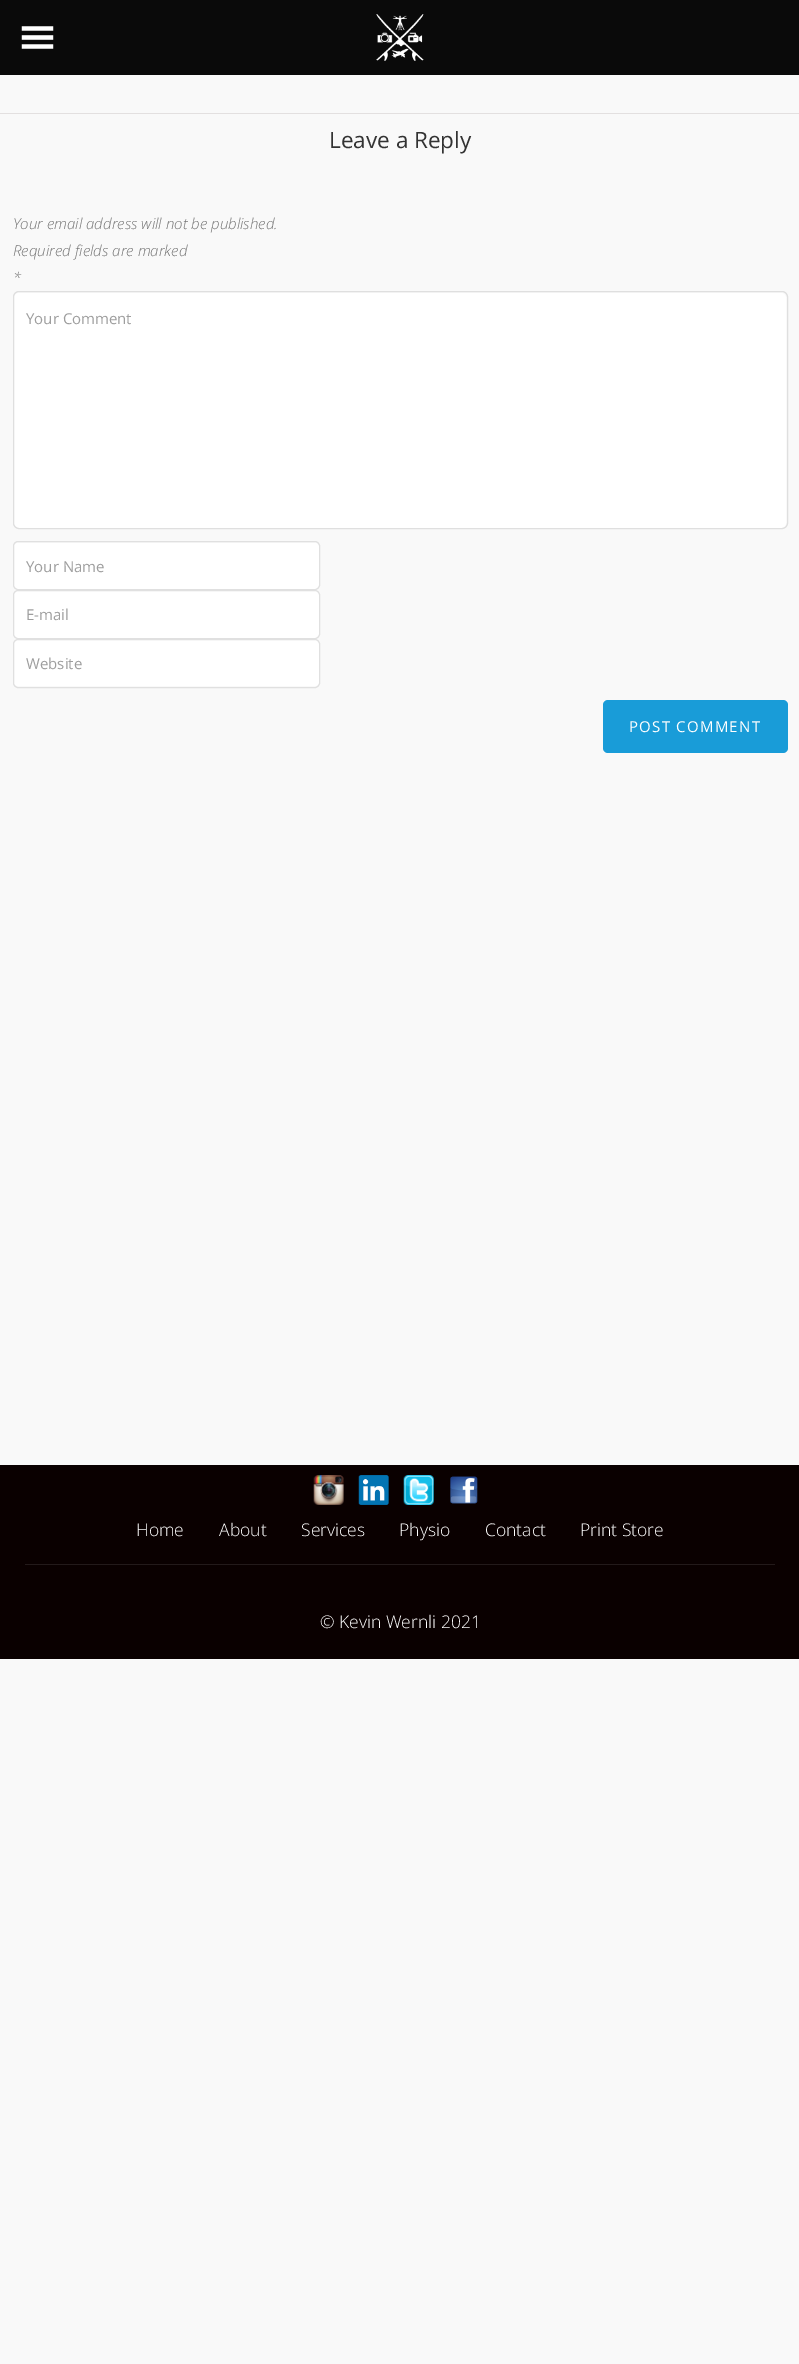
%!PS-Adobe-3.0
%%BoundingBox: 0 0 799 2364
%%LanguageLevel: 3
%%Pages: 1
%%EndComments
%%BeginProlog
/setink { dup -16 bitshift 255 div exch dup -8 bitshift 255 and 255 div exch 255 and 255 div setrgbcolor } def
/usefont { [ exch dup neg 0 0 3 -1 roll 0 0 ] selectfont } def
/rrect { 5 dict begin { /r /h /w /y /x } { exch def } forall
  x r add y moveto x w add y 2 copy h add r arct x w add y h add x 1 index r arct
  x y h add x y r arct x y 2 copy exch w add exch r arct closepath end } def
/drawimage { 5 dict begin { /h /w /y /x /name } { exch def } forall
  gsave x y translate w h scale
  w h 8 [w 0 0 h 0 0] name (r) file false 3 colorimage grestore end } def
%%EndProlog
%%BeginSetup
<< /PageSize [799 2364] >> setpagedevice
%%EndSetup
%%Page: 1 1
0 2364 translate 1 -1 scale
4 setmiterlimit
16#F9F9F9 setink
0 0 799 2364 rectfill
16#0A0A0A setink
0 0 799 75 rectfill
(img1.raw) 21 26 33 23 drawimage
(img2.raw) 376 14 48 47 drawimage
16#E3E0E0 setink
0 113 799 1 rectfill
/OpenSans-Regular 22.5 usefont
16#333333 setink
329 148 moveto (Leave a Reply) show
/OpenSans-LightItalic 15 usefont
16#757575 setink
[
    [(Your email address will not be published.) 13 229]
    [(Required fields are marked) 13 256]
    [(*) 13 283]
] { aload pop moveto show } forall
16#FFFFFF setink
14 293 772 235 5 rrect fill
16#DFDFDF setink
13.5 291.5 774 237 5.5 rrect stroke
/OpenSans-Regular 15 usefont
16#9E9E9E setink
26 324 moveto (Your Comment) show
16#FFFFFF setink
14 543 305 46 4 rrect fill
16#E0E0E0 setink
13.5 541.5 306 48 4.5 rrect stroke
16#9E9E9E setink
26 572 moveto (Your Name) show
16#FFFFFF setink
13.5 590.5 306 48 4.5 rrect gsave fill grestore
16#E0E0E0 setink
stroke
16#9E9E9E setink
26 620 moveto (E-mail) show
16#FFFFFF setink
14 640 305 46 4 rrect fill
16#E0E0E0 setink
13.5 639.5 306 48 4.5 rrect stroke
16#9E9E9E setink
26 669 moveto (Website) show
16#199CD8 setink
603 700 185 53 5 rrect fill
16#FFFFFF setink
629 732 moveto 1.25 0 (POST COMMENT) ashow
16#0A0000 setink
0 1465 799 194 rectfill
(img3.raw) 313 1475 31 30 drawimage
(img4.raw) 358 1475 31 30 drawimage
(img5.raw) 403 1475 31 30 drawimage
(img6.raw) 450 1476 28 28 drawimage
/OpenSans-Light 17.5 usefont
16#FFFFFF setink
[
    [(Home) 136 1536]
    [(About) 219 1536]
    [(Services) 301 1536]
    [(Physio) 399 1536]
    [(Contact) 485 1536]
    [(Print Store) 580 1536]
] { aload pop moveto show } forall
16#231A1A setink
25 1564 750 1 rectfill
16#FFFFFF setink
320 1628 moveto (© Kevin Wernli 2021) show
showpage
%%EOF
